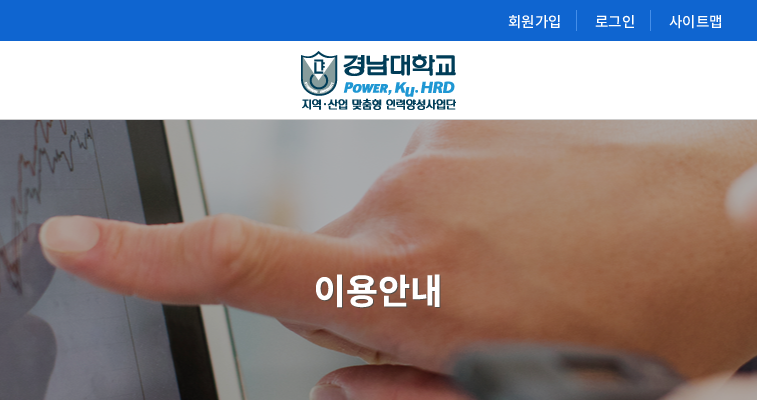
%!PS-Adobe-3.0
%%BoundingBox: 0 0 757 400
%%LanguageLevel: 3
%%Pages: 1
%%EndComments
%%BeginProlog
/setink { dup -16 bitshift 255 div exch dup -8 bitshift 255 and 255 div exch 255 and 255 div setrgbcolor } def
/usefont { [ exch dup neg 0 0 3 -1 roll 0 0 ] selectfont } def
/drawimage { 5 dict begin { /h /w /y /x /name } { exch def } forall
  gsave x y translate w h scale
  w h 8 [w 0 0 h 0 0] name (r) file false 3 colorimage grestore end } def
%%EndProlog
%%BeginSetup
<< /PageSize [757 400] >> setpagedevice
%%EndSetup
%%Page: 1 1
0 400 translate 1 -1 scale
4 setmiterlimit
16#FFFFFF setink
0 0 757 400 rectfill
16#0F65D0 setink
0 0 757 41 rectfill
16#458EE9 setink
576 10 1 21 rectfill
/NotoSansKR-Thin 14.5 usefont
16#FFFFFF setink
508 27 moveto (회원가입) show
16#458EE9 setink
650 10 1 21 rectfill
16#FFFFFF setink
595 27 moveto (로그인) show
669 27 moveto (사이트맵) show
16#CCCCCC setink
0 119 757 1 rectfill
(img1.raw) 301 51 155 59 drawimage
(img2.raw) 0 120 757 280 drawimage
(img3.raw) 316 274 125 35 drawimage
showpage
%%EOF
